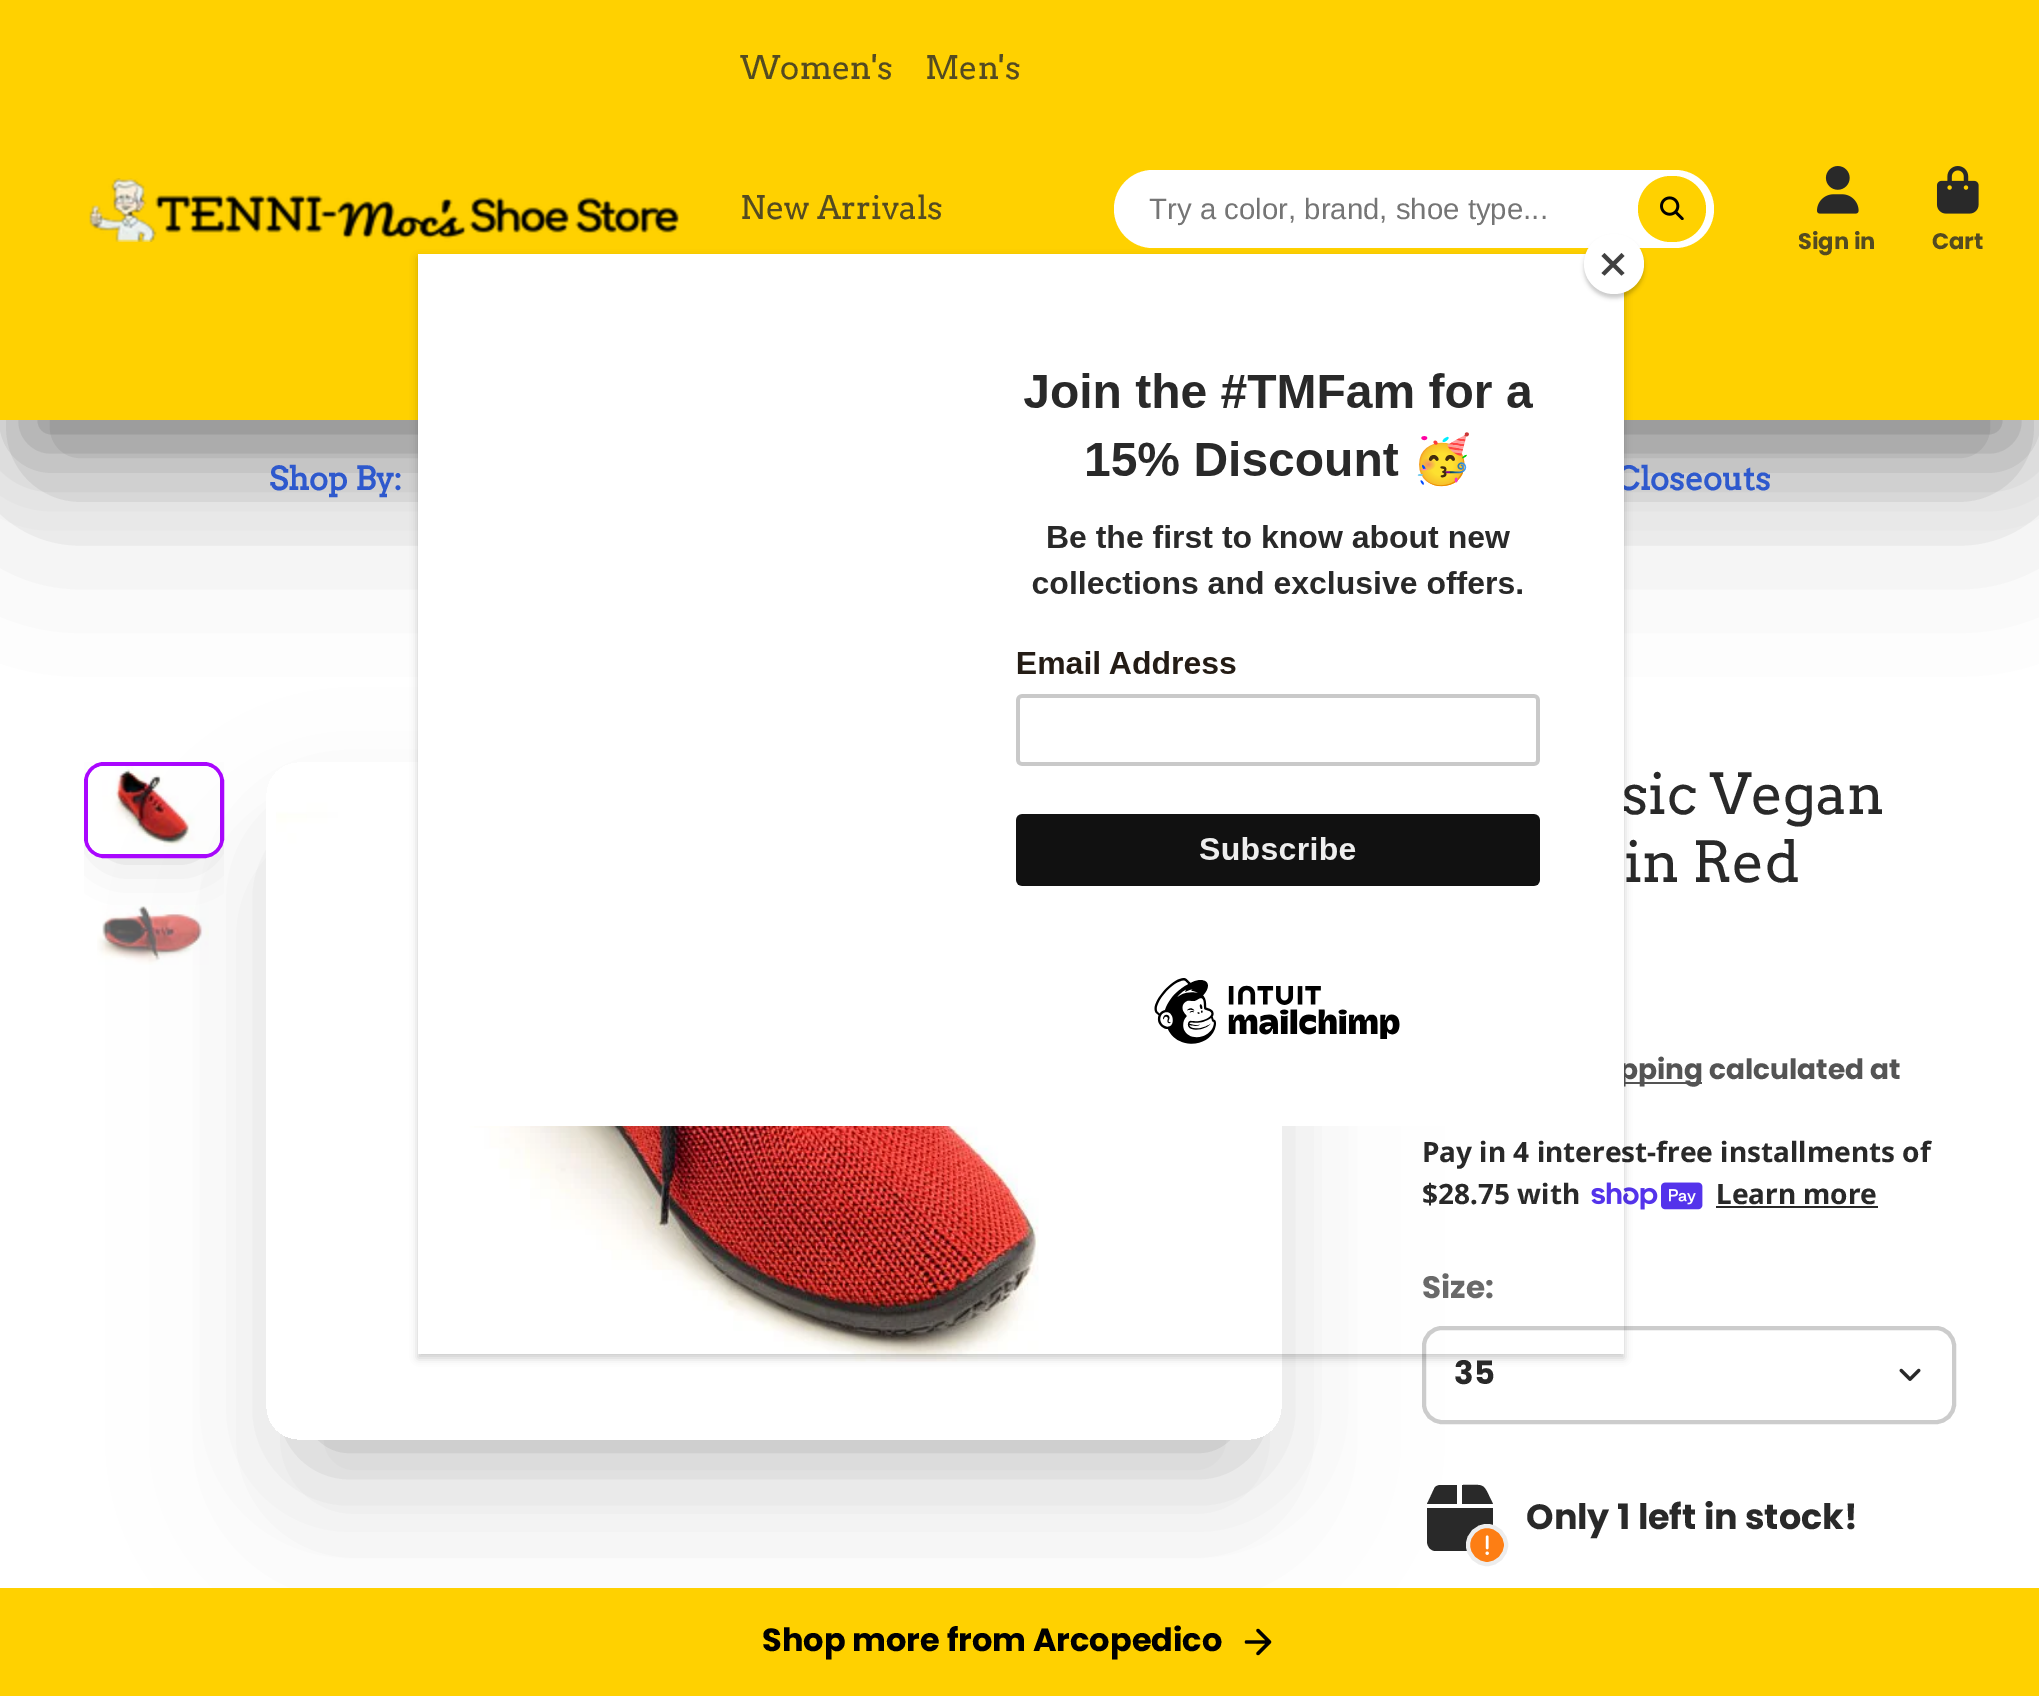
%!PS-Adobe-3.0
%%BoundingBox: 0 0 2039 1696
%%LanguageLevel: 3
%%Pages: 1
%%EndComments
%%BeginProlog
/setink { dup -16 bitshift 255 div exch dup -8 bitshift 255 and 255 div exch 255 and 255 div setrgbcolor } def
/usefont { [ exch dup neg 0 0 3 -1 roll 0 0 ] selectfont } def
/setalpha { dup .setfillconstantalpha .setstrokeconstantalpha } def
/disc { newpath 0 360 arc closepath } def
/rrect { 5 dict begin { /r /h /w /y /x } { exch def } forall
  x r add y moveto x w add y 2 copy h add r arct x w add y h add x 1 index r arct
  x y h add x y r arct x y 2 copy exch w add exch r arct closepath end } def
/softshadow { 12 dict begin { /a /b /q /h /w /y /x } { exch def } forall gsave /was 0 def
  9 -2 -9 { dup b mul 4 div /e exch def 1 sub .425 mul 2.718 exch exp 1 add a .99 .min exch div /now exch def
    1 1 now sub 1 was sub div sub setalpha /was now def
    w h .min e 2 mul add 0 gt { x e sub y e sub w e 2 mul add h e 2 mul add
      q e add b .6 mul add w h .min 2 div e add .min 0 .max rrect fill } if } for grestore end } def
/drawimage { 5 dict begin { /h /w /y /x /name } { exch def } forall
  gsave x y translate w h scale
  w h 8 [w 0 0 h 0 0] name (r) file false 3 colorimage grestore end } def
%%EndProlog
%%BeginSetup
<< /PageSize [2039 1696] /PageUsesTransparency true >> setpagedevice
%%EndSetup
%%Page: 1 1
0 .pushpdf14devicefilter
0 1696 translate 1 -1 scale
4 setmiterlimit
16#FFFFFF setink
0 0 2039 1696 rectfill
16#1C1C1C setink
28 80 1984 364 0 38.5 0.4 softshadow
28 116 1984 364 0 87.5 0.3 softshadow
16#FFD100 setink
0 0 2039 420 rectfill
(img1.raw) 89 178 590 64 drawimage
/Arvo-Regular 32.25 usefont
16#544B21 setink
[
    [(Women's) 740 79]
    [(Men's) 925 79]
    [(New Arrivals) 740 219]
] { aload pop moveto show } forall
16#FFFFFF setink
1114 170 600 78 39 rrect fill
/LiberationSans-Regular 29.4 usefont
16#757575 setink
1149 219 moveto (Try a color, brand, shoe type...) show
16#FFD100 setink
1638 176 68 66 33 rrect fill
(img2.raw) 1660 196 24 24 drawimage
(img3.raw) 1817 166 42 48 drawimage
/Poppins-Bold 22.5 usefont
16#544B21 setink
1798 249 moveto (Sign in) show
(img4.raw) 1936 166 43 48 drawimage
1932 249 moveto (Cart) show
/Arvo-Bold 32 usefont
16#2E59CD setink
269 490 moveto (Shop By:) show
1616 490 moveto (Closeouts) show
gsave
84 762 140 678 rectclip
16#1C1C1C setink
112 804 84 40 0 28 0.3 softshadow
grestore
16#AA06FF setink
4 setlinewidth
86 764 136 92 18 rrect stroke
(img6.raw) 88 766 132 88 drawimage
(img7.raw) 97 905 112 60 drawimage
gsave
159 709 moveto 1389 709 lineto 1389 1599 lineto 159 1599 lineto closepath 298 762 moveto 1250 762 lineto 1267.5 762 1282 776.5 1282 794 curveto 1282 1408 lineto 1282 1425.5 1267.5 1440 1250 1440 curveto 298 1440 lineto 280.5 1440 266 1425.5 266 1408 curveto 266 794 lineto 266 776.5 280.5 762 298 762 curveto closepath eoclip newpath
16#1C1C1C setink
318 868 912 572 0 52.5 0.3 softshadow
grestore
gsave
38 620 moveto 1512 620 lineto 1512 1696 lineto 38 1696 lineto closepath 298 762 moveto 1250 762 lineto 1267.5 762 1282 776.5 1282 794 curveto 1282 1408 lineto 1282 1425.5 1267.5 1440 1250 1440 curveto 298 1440 lineto 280.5 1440 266 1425.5 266 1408 curveto 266 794 lineto 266 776.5 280.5 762 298 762 curveto closepath eoclip newpath
16#1C1C1C setink
302 884 946 608 0 87.5 0.1 softshadow
grestore
(img5.raw) 276 794 763 568 drawimage
/Arvo-Regular 56.5 usefont
16#292929 setink
1621 814 moveto (sic Vegan) show
1624 882 moveto (in Red) show
16#545454 setink
1624 1082 78 2 rectfill
/Poppins-Bold 28 usefont
1619 1079 moveto (pping calculated at) show
/NotoSans-Bold 28 usefont
16#292929 setink
1422 1162 moveto (Pay in 4 interest-free installments of) show
1422 1204 moveto ($28.75 with) show
(img8.raw) 1591 1182 112 28 drawimage
1716 1204 moveto (Learn more) show
1716 1206 162 2 rectfill
/Poppins-Bold 31 usefont
16#696969 setink
1422 1298 moveto (Size:) show
16#CCCCCC setink
1424 1328 530 94 18 rrect stroke
/Poppins-Bold 32.25 usefont
16#292929 setink
1454 1384 moveto (35) show
(img9.raw) 1899 1368 22 13 drawimage
1434 1489 moveto 1427 1504 lineto 1457 1504 lineto 1457 1485 lineto 1441 1485 lineto 1438 1485 1435 1486 1434 1489 curveto closepath 1462 1504 moveto 1493 1504 lineto 1482 1482 1487 1485 1462 1485 curveto closepath 1493 1508 moveto 1427 1508 lineto 1427 1541 lineto 1427 1547 1431 1551 1436 1551 curveto 1483 1551 lineto 1489 1551 1493 1547 1493 1541 curveto closepath fill
16#FD7E14 setink
1487 1545 19 disc gsave fill grestore
16#EDEDED setink
stroke
(img10.raw) 1485 1535 4 20 drawimage
/Poppins-Bold 35 usefont
16#292929 setink
1526 1529 moveto (Only 1 left in stock!) show
16#FFD100 setink
0 1588 2039 108 rectfill
/Poppins-Bold 32 usefont
16#000000 setink
762 1651 moveto (Shop more from Arcopedico) show
3.3 setlinewidth
1 setlinecap
1 setlinejoin
1246.5 1642 moveto 1269.5 1642 lineto 1258 1630.5 moveto 1269.5 1642 lineto 1258 1653.5 lineto stroke
gsave
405 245 moveto 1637 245 lineto 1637 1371 lineto 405 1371 lineto closepath 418 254 moveto 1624 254 lineto 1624 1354 lineto 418 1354 lineto closepath eoclip newpath
418 258 1206 1100 0 4 0.2 softshadow
grestore
(img11.raw) 418 254 1206 872 drawimage
1584 238 60 60 30 2 0.2 softshadow
16#FFFFFF setink
1614 264 30 disc fill
16#414141 setink
1621.5 253 moveto 1624.5 256 lineto 1604.5 275.5 lineto 1601.5 273 lineto closepath fill
1601.5 256 moveto 1604.5 253 lineto 1624.5 273 lineto 1621.5 275.5 lineto closepath fill
.poppdf14devicefilter showpage
%%EOF
